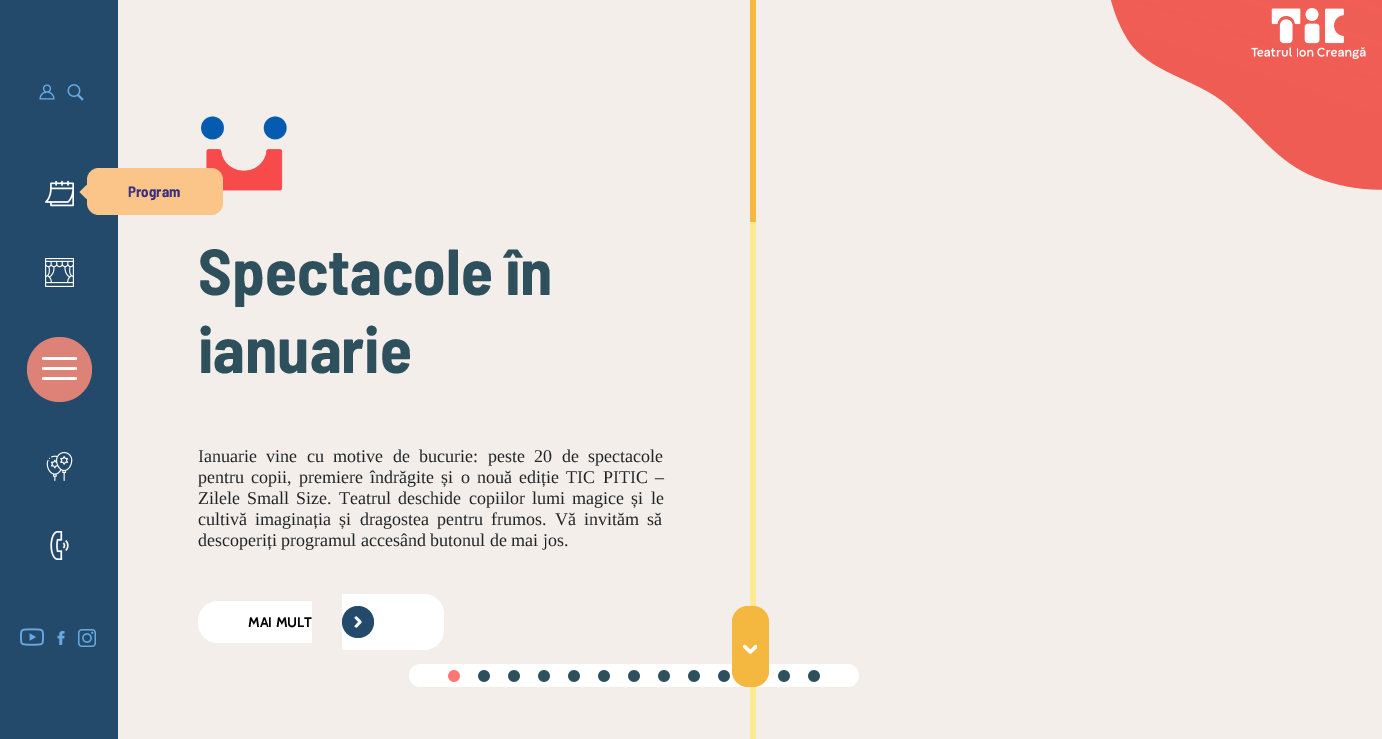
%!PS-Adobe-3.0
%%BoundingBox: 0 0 1382 739
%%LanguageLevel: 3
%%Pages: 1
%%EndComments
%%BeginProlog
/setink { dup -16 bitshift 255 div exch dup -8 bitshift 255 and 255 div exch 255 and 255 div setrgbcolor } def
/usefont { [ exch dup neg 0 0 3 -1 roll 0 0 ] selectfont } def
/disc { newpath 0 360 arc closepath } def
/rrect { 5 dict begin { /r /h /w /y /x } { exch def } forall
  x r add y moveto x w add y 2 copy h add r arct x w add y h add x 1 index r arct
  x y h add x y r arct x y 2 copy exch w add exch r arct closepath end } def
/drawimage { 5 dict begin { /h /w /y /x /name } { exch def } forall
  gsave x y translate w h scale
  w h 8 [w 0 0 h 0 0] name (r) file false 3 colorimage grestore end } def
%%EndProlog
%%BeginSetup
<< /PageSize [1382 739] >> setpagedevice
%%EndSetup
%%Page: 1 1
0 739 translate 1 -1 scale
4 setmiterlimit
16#234A6B setink
0 0 1382 739 rectfill
(img1.raw) 39 84 16 16 drawimage
(img2.raw) 67 84 17 17 drawimage
(img3.raw) 45 180 29 27 drawimage
16#FBC58A setink
86.5 185 moveto 93.5 192 lineto 86.5 199 lineto 79.5 192 lineto closepath fill
16#F3EEE9 setink
118 0 1264 739 rectfill
(img12.raw) 201 116 86 75 drawimage
16#FBC58A setink
87 168 136 47 12 rrect fill
/BarlowSemiCondensed-Bold 15 usefont
16#372E7F setink
128 197 moveto (Program) show
(img4.raw) 45 258 29 29 drawimage
16#DC8277 setink
59.5 369.5 32.5 disc fill
16#FFFFFF setink
49 357 moveto 70 357 lineto 74 357 77 357.5 77 357.5 curveto 77 359.5 lineto 77 359.5 74 360 70 360 curveto 49 360 lineto 45 360 42 359.5 42 359.5 curveto 42 357.5 lineto 42 357.5 45 357 49 357 curveto closepath 49 367 moveto 70 367 lineto 74 367 77 367.5 77 367.5 curveto 77 369.5 lineto 77 369.5 74 370 70 370 curveto 49 370 lineto 45 370 42 369.5 42 369.5 curveto 42 367.5 lineto 42 367.5 45 367 49 367 curveto closepath 49 377 moveto 70 377 lineto 74 377 77 377.5 77 377.5 curveto 77 379.5 lineto 77 379.5 74 380 70 380 curveto 49 380 lineto 45 380 42 379.5 42 379.5 curveto 42 377.5 lineto 42 377.5 45 377 49 377 curveto closepath fill
(img5.raw) 46 452 27 29 drawimage
(img6.raw) 50 531 19 29 drawimage
(img7.raw) 20 628 24 18 drawimage
(img8.raw) 57 631 8 14 drawimage
(img9.raw) 78 629 18 18 drawimage
(img10.raw) 1110 0 272 190 drawimage
(img11.raw) 1251 8 115 51 drawimage
/BarlowSemiCondensed-Bold 65 usefont
16#2E505D setink
198 295 moveto (Spectacole în) show
198 373 moveto (ianuarie) show
/LiberationSerif-Regular 18 usefont
16#212529 setink
198 462 moveto 5 0 32 (Ianuarie vine cu motive de bucurie: peste 20 de spectacole) widthshow
198 483 moveto 2.75 0 32 (pentru copii, premiere îndrăgite și o nouă ediție TIC PITIC –) widthshow
198 504 moveto 2.75 0 32 (Zilele Small Size. Teatrul deschide copiilor lumi magice și le) widthshow
198 525 moveto 3.75 0 32 (cultivă imaginația și dragostea pentru frumos. Vă invităm să) widthshow
198 546 moveto (descoperiți programul accesând butonul de mai jos.) show
16#FFFFFF setink
218 601 moveto 312 601 lineto 312 643 lineto 218 643 lineto 207 643 198 634 198 623 curveto 198 621 lineto 198 610 207 601 218 601 curveto closepath fill
342 594 moveto 424 594 lineto 435 594 444 603 444 614 curveto 444 630 lineto 444 641 435 650 424 650 curveto 342 650 lineto closepath fill
/Cabin-Bold 14 usefont
16#000000 setink
248 627 moveto (MAI MULT) show
16#234A6B setink
358 622 16 disc fill
(img13.raw) 354 616 8 12 drawimage
16#F4B73F setink
750 0 6 222 rectfill
16#FFEA94 setink
750 222 6 517 rectfill
16#FFFFFF setink
409 664 450 23 11.5 rrect fill
(img14.raw) 448 670 12 12 drawimage
(img15.raw) 478 670 12 12 drawimage
(img15.raw) 508 670 12 12 drawimage
(img15.raw) 538 670 12 12 drawimage
(img15.raw) 568 670 12 12 drawimage
(img15.raw) 598 670 12 12 drawimage
(img15.raw) 628 670 12 12 drawimage
(img15.raw) 658 670 12 12 drawimage
(img15.raw) 688 670 12 12 drawimage
(img15.raw) 718 670 12 12 drawimage
(img15.raw) 778 670 12 12 drawimage
(img15.raw) 808 670 12 12 drawimage
16#F4B73F setink
732 606 37 81 16 rrect fill
(img16.raw) 742 644 16 10 drawimage
showpage
%%EOF
